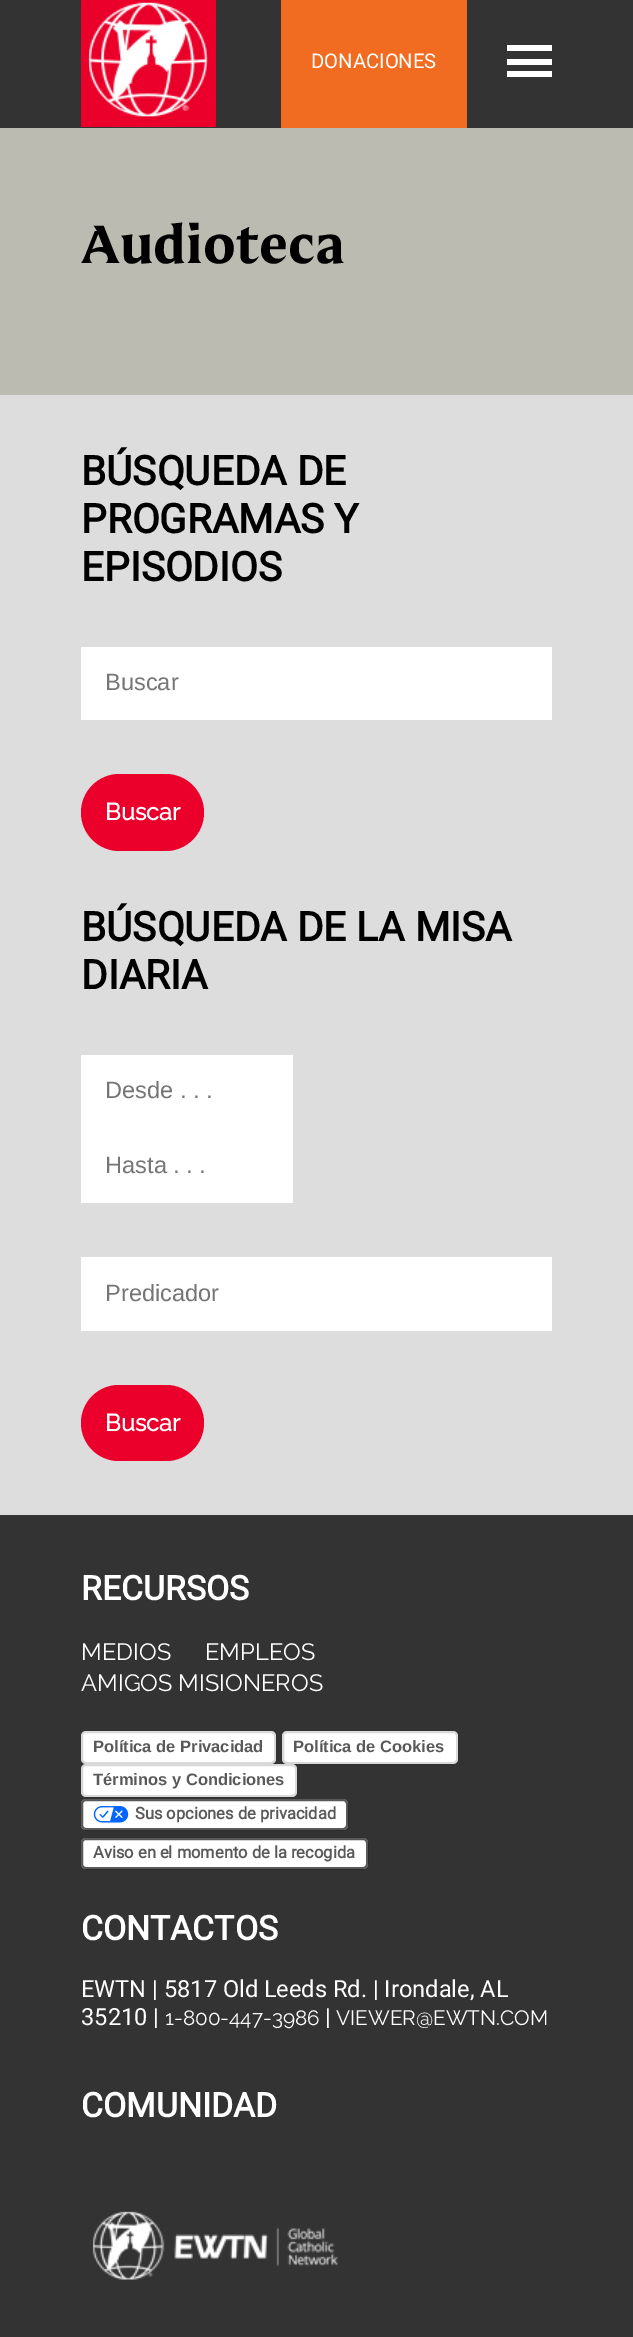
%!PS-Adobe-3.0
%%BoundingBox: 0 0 633 2337
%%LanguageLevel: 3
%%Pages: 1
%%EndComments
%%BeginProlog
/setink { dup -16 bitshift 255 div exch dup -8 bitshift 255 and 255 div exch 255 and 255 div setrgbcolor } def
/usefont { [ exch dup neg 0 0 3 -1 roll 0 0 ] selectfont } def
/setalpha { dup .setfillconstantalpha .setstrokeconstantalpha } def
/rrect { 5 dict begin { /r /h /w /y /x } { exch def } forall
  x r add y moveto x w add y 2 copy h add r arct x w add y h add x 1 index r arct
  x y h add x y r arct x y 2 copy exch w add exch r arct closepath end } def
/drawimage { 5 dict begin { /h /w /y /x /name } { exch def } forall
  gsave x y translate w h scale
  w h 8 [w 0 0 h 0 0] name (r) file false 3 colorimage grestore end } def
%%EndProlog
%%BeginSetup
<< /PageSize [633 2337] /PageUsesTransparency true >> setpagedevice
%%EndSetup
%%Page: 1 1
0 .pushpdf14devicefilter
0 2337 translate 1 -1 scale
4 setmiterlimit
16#DDDDDD setink
0 0 633 2337 rectfill
16#333333 setink
0 0 633 128 rectfill
(img1.raw) 81 0 135 127 drawimage
16#F16C20 setink
281 0 186 128 rectfill
/Roboto-Regular 20.25 usefont
16#FFFFFF setink
311 68 moveto (DONACIONES) show
[
    [507 45 45 6 16#FFFFFF]
    [507 59 45 6 16#FFFFFF]
    [507 71 45 6 16#FFFFFF]
    [0 128 633 267 16#BBBBB1]
] { aload pop setink rectfill } forall
/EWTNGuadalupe-Bold 54 usefont
16#000000 setink
81 263 moveto (Audioteca) show
/Roboto-Bold 40.5 usefont
[
    [(BÚSQUEDA DE) 81 485]
    [(PROGRAMAS Y) 81 533]
    [(EPISODIOS) 81 581]
] { aload pop moveto show } forall
16#FFFFFF setink
81 647 471 73 rectfill
/LiberationSans-Regular 23.6 usefont
16#757575 setink
105 690 moveto (Buscar) show
16#EA002A setink
81 774 123 77 38.5 rrect fill
/Raleway-Bold 23.6 usefont
16#FFFFFF setink
105 820 moveto (Buscar) show
/Roboto-Bold 40.5 usefont
16#000000 setink
81 941 moveto (BÚSQUEDA DE LA MISA) show
81 989 moveto (DIARIA) show
16#FFFFFF setink
81 1055 212 148 rectfill
/LiberationSans-Regular 23.6 usefont
16#757575 setink
105 1098 moveto (Desde . . .) show
105 1173 moveto (Hasta . . .) show
16#FFFFFF setink
81 1257 471 74 rectfill
16#757575 setink
105 1301 moveto (Predicador) show
16#EA002A setink
81 1385 123 76 38 rrect fill
/Raleway-Bold 23.6 usefont
16#FFFFFF setink
105 1431 moveto (Buscar) show
16#333333 setink
0 1515 633 822 rectfill
/Roboto-Bold 33.75 usefont
16#FFFFFF setink
81 1600 moveto (RECURSOS) show
/Raleway-Regular 23.6 usefont
[
    [(MEDIOS) 81 1660]
    [(EMPLEOS) 205 1660]
    [(AMIGOS MISIONEROS) 81 1691]
] { aload pop moveto show } forall
81 1731 195 33 5 rrect fill
0.15 setalpha
16#000000 setink
2 setlinewidth
82 1732 193 31 4 rrect stroke
/LiberationSans-Bold 16.5 usefont
1 setalpha
16#595959 setink
93 1752 moveto (Política de Privacidad) show
16#FFFFFF setink
282 1731 176 33 5 rrect fill
0.15 setalpha
16#000000 setink
283 1732 174 31 4 rrect stroke
1 setalpha
16#595959 setink
293 1752 moveto (Política de Cookies) show
16#FFFFFF setink
81 1764 216 33 5 rrect fill
0.15 setalpha
16#000000 setink
82 1765 214 31 4 rrect stroke
1 setalpha
16#595959 setink
93 1785 moveto (Términos y Condiciones) show
16#FFFFFF setink
81 1799 267 31 5 rrect fill
0.65 setalpha
16#000000 setink
82 1800 265 29 4 rrect stroke
1 setalpha
(img2.raw) 93 1806 36 17 drawimage
/Roboto-Bold 16.5 usefont
16#595959 setink
135 1819 moveto (Sus opciones de privacidad) show
16#FFFFFF setink
81 1838 287 31 5 rrect fill
0.65 setalpha
16#000000 setink
82 1839 285 29 4 rrect stroke
1 setalpha
16#595959 setink
93 1858 moveto (Aviso en el momento de la recogida) show
/Roboto-Bold 33.75 usefont
16#FFFFFF setink
81 1940 moveto (CONTACTOS) show
/Roboto-Regular 23.6 usefont
81 1997 moveto (EWTN | 5817 Old Leeds Rd. | Irondale, AL) show
81 2025 moveto (35210 |) show
/Raleway-Regular 20.75 usefont
165 2025 moveto (1-800-447-3986) show
/Roboto-Regular 23.6 usefont
325 2025 moveto (|) show
/Raleway-Regular 20.75 usefont
336 2025 moveto (VIEWER@EWTN.COM) show
/Roboto-Bold 33.75 usefont
81 2117 moveto (COMUNIDAD) show
(img3.raw) 92 2211 246 69 drawimage
.poppdf14devicefilter showpage
%%EOF
